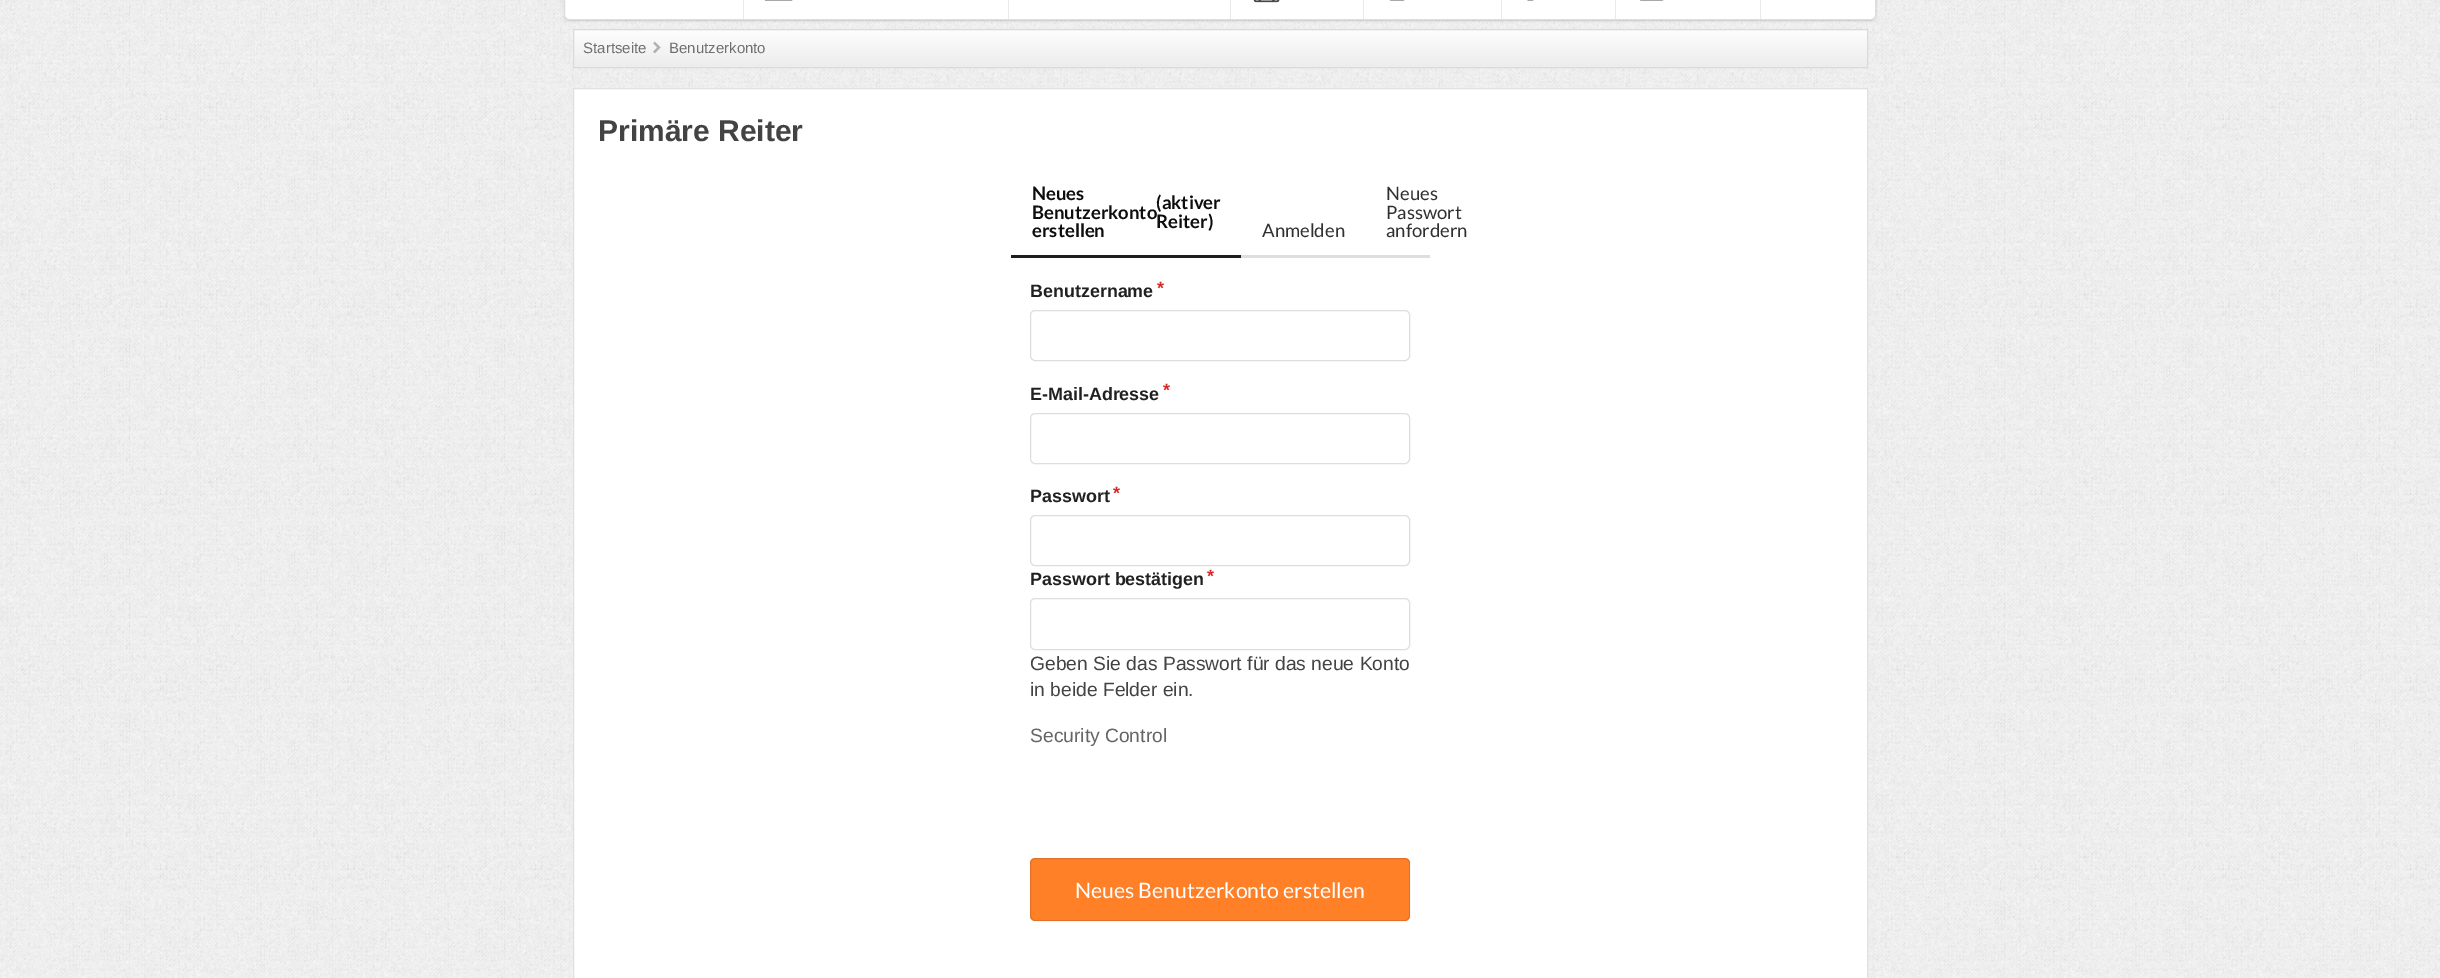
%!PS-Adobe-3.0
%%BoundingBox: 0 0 2440 978
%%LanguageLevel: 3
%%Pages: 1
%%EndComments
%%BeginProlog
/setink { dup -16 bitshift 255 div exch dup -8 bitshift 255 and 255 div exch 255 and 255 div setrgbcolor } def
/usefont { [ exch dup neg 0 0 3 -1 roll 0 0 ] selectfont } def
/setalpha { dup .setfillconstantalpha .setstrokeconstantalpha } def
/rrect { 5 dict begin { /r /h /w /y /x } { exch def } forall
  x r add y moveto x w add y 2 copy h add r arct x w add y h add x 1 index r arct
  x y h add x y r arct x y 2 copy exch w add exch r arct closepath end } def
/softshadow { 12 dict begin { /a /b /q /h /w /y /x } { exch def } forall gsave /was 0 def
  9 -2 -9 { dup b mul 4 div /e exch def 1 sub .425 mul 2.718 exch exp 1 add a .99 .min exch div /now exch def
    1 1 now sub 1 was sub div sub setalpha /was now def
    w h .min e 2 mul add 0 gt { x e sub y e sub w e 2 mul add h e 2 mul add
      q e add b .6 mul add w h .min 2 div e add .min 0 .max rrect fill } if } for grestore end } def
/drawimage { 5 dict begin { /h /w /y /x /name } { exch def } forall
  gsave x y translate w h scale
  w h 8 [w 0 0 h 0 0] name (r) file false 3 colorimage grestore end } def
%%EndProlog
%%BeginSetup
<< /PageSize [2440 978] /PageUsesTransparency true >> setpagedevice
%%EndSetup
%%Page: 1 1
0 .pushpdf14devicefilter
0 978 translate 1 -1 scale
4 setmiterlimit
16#FFFFFF setink
0 0 2440 978 rectfill
(img1.raw) 0 0 2440 978 drawimage
16#222426 setink
564 -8 1312 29 5 1 0.15 softshadow
16#FFFFFF setink
564 -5 1312 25 5 rrect fill
0.15 setalpha
16#222426 setink
564.5 -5.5 1311 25 4.5 rrect stroke
1 setalpha
16#E9E9E9 setink
743 0 1 19 rectfill
(img2.raw) 765 0 28 1 drawimage
1008 0 1 19 rectfill
1230 0 1 19 rectfill
(img3.raw) 1253 0 27 3 drawimage
1363 0 1 19 rectfill
(img4.raw) 1389 0 16 1 drawimage
1501 0 1 19 rectfill
(img5.raw) 1527 0 7 1 drawimage
1615 0 1 19 rectfill
(img6.raw) 1639 0 25 1 drawimage
1760 0 1 19 rectfill
16#EDEDED setink
574 66 1293 1 rectfill
gsave 574 30 moveto 1867 30 lineto 1867 66 lineto 574 66 lineto closepath clip newpath
<< /ShadingType 2 /ColorSpace /DeviceRGB /Coords [1220 30 1220 66] /Extend [true true] /Function << /FunctionType 2 /Domain [0 1] /C0 [0.992 0.992 0.992] /C1 [0.929 0.929 0.929] /N 1 >> >> shfill grestore
16#DADADA setink
573.5 29.5 1294 38 rectstroke
/LiberationSans-Regular 15 usefont
16#707070 setink
583 53 moveto (Startseite) show
(img7.raw) 653 41 8 13 drawimage
669 53 moveto (Benutzerkonto) show
16#FFFFFF setink
573.5 88.5 moveto 1867.5 88.5 lineto 1867.5 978.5 lineto 573.5 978.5 lineto closepath gsave fill grestore
16#E0E0E0 setink
stroke
/LiberationSans-Bold 30 usefont
16#434343 setink
598 141 moveto (Primäre Reiter) show
16#DEDEDE setink
1241 255 189 3 rectfill
16#1B1C1D setink
1011 255 230 3 rectfill
/Lato-Bold 18.5 usefont
16#0D0D0D setink
[
    [(Neues) 1032 200]
    [(\(aktiver) 1156 209]
    [(Reiter\)) 1156 228]
    [(Benutzerkonto) 1032 219]
    [(erstellen) 1032 237]
] { aload pop moveto show } forall
/Lato-Regular 18.5 usefont
16#303030 setink
[
    [(Anmelden) 1262 237]
    [(Neues) 1386 200]
    [(Passwort) 1386 219]
    [(anfordern) 1386 237]
] { aload pop moveto show } forall
/LiberationSans-Bold 17.9 usefont
16#212121 setink
1030 297 moveto (Benutzername) show
16#DB2828 setink
1157 294 moveto (*) show
16#DEDEDE setink
1030.5 310.5 379 50 4.5 rrect stroke
16#212121 setink
1030 400 moveto (E-Mail-Adresse) show
16#DB2828 setink
1163 396 moveto (*) show
16#DEDEDE setink
1030.5 413.5 379 50 4.5 rrect stroke
16#212121 setink
1030 502 moveto (Passwort) show
16#DB2828 setink
1113 499 moveto (*) show
16#DEDEDE setink
1030.5 515.5 379 50 4.5 rrect stroke
16#212121 setink
1030 585 moveto (Passwort bestätigen) show
16#DB2828 setink
1207 582 moveto (*) show
16#DEDEDE setink
1030.5 598.5 379 51 4.5 rrect stroke
/LiberationSans-Regular 19.25 usefont
16#434343 setink
1030 670 moveto (Geben Sie das Passwort für das neue Konto) show
1030 696 moveto (in beide Felder ein.) show
16#666666 setink
1030 742 moveto (Security Control) show
16#FF8026 setink
1030 858 380 63 5 rrect fill
0.15 setalpha
16#222426 setink
1030.5 858.5 379 62 4.5 rrect stroke
/Lato-Regular 21.25 usefont
1 setalpha
16#FFFFFF setink
1075 898 moveto (Neues Benutzerkonto erstellen) show
.poppdf14devicefilter showpage
%%EOF
